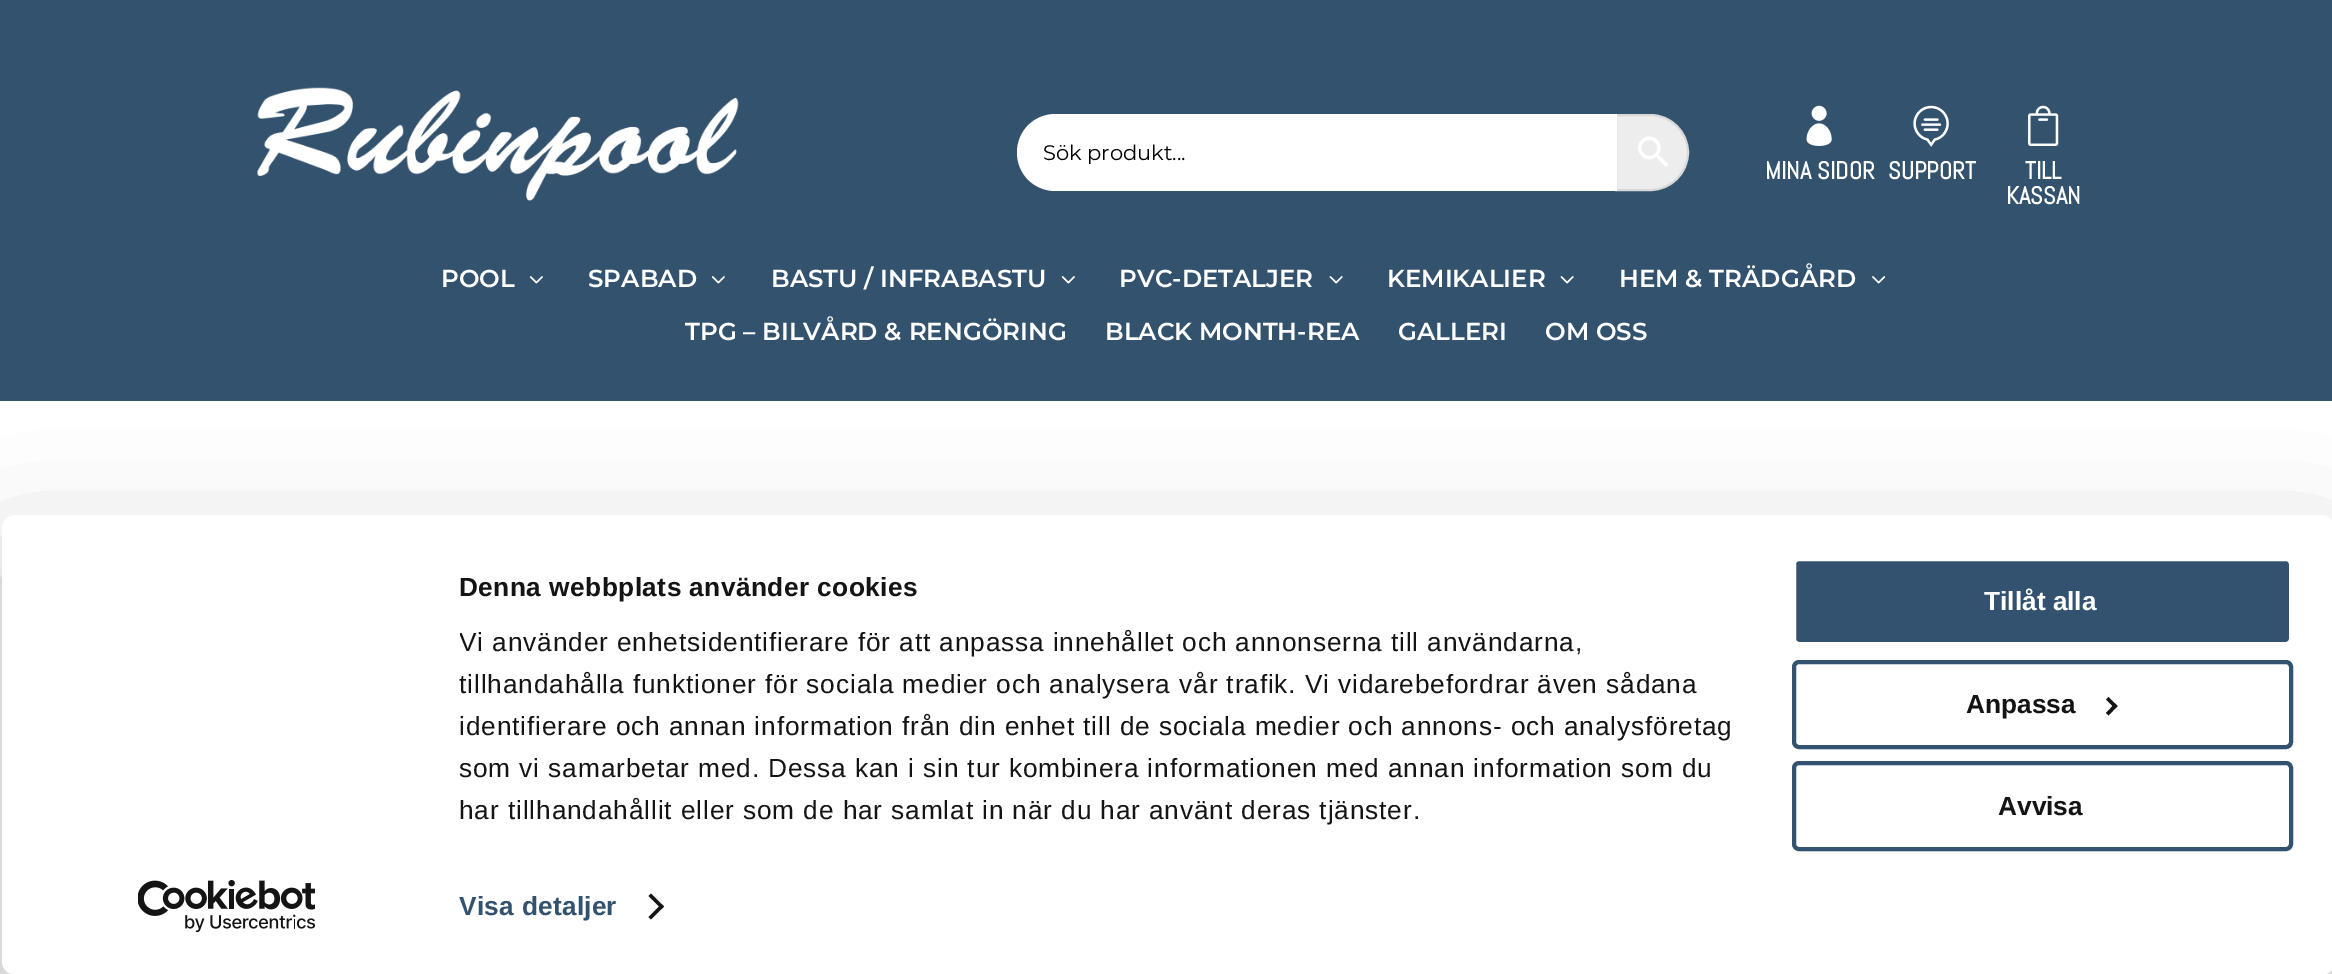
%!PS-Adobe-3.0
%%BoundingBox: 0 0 2332 974
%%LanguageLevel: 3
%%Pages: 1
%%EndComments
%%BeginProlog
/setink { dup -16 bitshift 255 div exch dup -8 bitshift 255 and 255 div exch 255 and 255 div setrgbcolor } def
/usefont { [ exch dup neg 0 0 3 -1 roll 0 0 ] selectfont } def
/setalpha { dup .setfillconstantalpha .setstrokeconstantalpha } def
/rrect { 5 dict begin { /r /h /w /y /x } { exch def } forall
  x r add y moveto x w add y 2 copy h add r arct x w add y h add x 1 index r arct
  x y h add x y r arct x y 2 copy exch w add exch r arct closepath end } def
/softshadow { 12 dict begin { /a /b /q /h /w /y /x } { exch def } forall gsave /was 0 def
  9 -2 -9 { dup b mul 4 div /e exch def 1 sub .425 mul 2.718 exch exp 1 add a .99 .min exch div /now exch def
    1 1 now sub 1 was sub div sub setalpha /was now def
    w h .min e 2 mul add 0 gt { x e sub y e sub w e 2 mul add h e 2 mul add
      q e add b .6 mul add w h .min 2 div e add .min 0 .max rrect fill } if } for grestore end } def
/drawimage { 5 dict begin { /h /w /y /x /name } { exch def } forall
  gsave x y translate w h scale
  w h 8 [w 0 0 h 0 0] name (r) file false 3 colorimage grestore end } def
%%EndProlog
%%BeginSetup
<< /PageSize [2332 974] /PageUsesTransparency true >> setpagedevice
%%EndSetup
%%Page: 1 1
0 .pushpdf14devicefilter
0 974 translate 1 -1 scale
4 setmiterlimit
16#FFFFFF setink
0 0 2332 974 rectfill
16#32526E setink
0 0 2332 401 rectfill
(img1.raw) 257 87 482 114 drawimage
16#EDEDED setink
1616 115 moveto 1650.5 115 lineto 1671 115 1688 132 1688 152.5 curveto 1688 173 1671 190 1650.5 190 curveto 1616 190 lineto closepath gsave fill grestore
16#D8D8D8 setink
2 setlinewidth
stroke
16#FFFFFF setink
1055.5 114 moveto 1617 114 lineto 1617 191 lineto 1055.5 191 lineto 1034 191 1017 174 1017 152.5 curveto 1017 131 1034 114 1055.5 114 curveto closepath fill
/Montserrat-Thin 21 usefont
16#000000 setink
1043 160 moveto (Sök produkt...) show
(img2.raw) 1638 136 31 31 drawimage
(img3.raw) 1806 105 26 41 drawimage
/Abel-Bold 24.5 usefont
16#FFFFFF setink
1765 179 moveto (MINA SIDOR) show
(img4.raw) 1913 105 36 42 drawimage
1888 179 moveto (SUPPORT) show
(img5.raw) 2028 105 31 41 drawimage
2025 179 moveto (TILL) show
2006 204 moveto (KASSAN) show
/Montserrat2-Thin 24.5 usefont
441 287 moveto (POOL) show
(img6.raw) 529 276 14 8 drawimage
588 287 moveto (SPABAD) show
(img6.raw) 711 276 14 8 drawimage
771 287 moveto (BASTU / INFRABASTU) show
(img6.raw) 1061 276 14 8 drawimage
1119 287 moveto (PVC-DETALJER) show
(img7.raw) 1329 276 14 8 drawimage
1387 287 moveto (KEMIKALIER) show
(img7.raw) 1560 276 14 8 drawimage
1619 287 moveto (HEM & TRÄDGÅRD) show
(img8.raw) 1872 276 14 8 drawimage
[
    [(TPG – BILVÅRD & RENGÖRING) 685 340]
    [(BLACK MONTH-REA) 1105 340]
    [(GALLERI) 1398 340]
    [(OM OSS) 1545 340]
] { aload pop moveto show } forall
gsave
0 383 moveto 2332 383 lineto 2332 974 lineto 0 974 lineto closepath 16 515 moveto 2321 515 lineto 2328.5 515 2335 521.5 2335 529 curveto 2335 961 lineto 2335 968.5 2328.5 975 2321 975 curveto 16 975 lineto 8.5 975 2 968.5 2 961 curveto 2 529 lineto 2 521.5 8.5 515 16 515 curveto closepath eoclip newpath
16#000000 setink
2 567 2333 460 14 61 0.3 softshadow
grestore
2 515 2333 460 14 rrect fill
/LiberationSans-Bold 26.25 usefont
16#141414 setink
459 596 moveto 0.45 0 (Denna webbplats använder cookies) ashow
gsave
460 567 1322 264 rectclip
/LiberationSans-Regular 26.25 usefont
459 651 moveto 0.88 0 (Vi använder enhetsidentifierare för att anpassa innehållet och annonserna till användarna,) ashow
grestore
/LiberationSans-Regular 26.25 usefont
459 693 moveto 0.88 0 (tillhandahålla funktioner för sociala medier och analysera vår trafik. Vi vidarebefordrar även sådana) ashow
459 735 moveto 0.88 0 (identifierare och annan information från din enhet till de sociala medier och annons- och analysföretag) ashow
459 777 moveto 0.88 0 (som vi samarbetar med. Dessa kan i sin tur kombinera informationen med annan information som du) ashow
459 819 moveto 0.88 0 (har tillhandahållit eller som de har samlat in när du har använt deras tjänster.) ashow
/LiberationSans-Bold 26.25 usefont
16#32526F setink
459 915 moveto 0.25 0 (Visa detaljer) ashow
16#141414 setink
651 893.5 moveto 664 906.5 lineto 661.5 909 lineto 648.5 896 lineto closepath fill
661.5 904 moveto 664 906.5 lineto 651 919.5 lineto 648.5 917 lineto closepath fill
16#32526F setink
1794 559 497 85 5 rrect gsave fill grestore
16#FFFFFF setink
4 setlinewidth
stroke
1984 610 moveto (Tillåt alla) show
16#32526F setink
1794 662 497 85 5 rrect stroke
16#141414 setink
1966 713 moveto (Anpassa) show
2108.5 697 moveto 2117.5 706 lineto 2115 708.5 lineto 2106 699.5 lineto closepath fill
2115 703.5 moveto 2117.5 706 lineto 2108.5 715.5 lineto 2106 713 lineto closepath fill
16#32526F setink
1794 763 497 86 5 rrect stroke
16#141414 setink
1998 815 moveto (Avvisa) show
(img9.raw) 138 880 177 53 drawimage
.poppdf14devicefilter showpage
%%EOF
